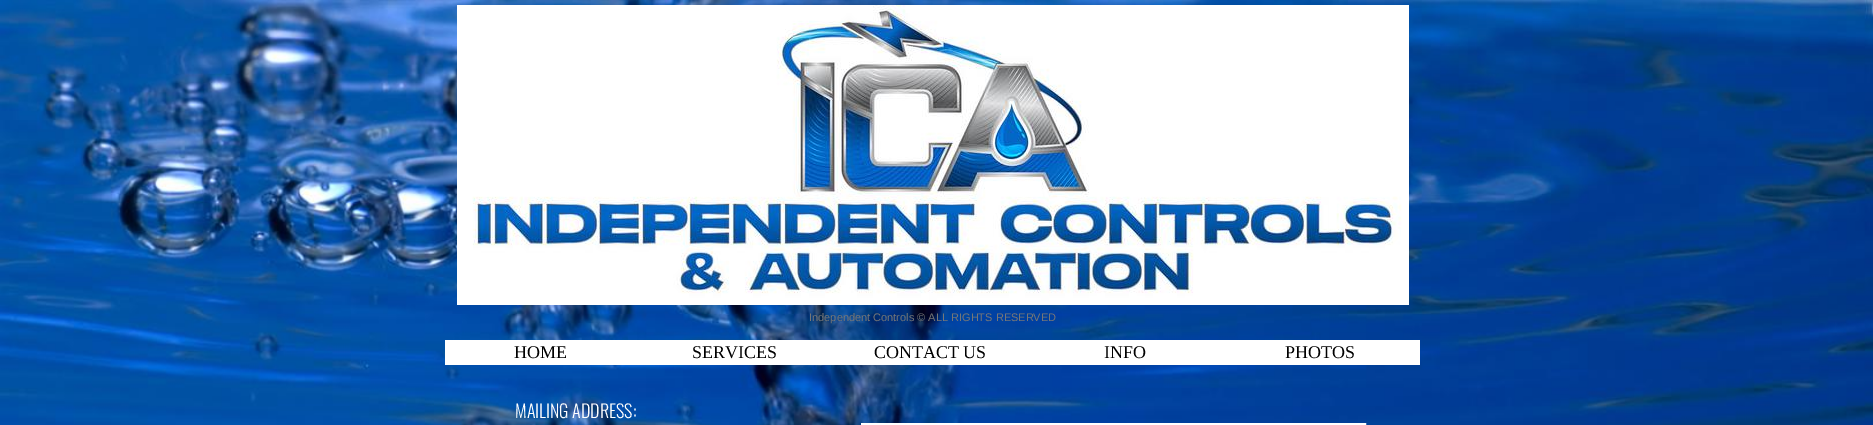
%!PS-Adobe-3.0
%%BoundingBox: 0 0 1873 425
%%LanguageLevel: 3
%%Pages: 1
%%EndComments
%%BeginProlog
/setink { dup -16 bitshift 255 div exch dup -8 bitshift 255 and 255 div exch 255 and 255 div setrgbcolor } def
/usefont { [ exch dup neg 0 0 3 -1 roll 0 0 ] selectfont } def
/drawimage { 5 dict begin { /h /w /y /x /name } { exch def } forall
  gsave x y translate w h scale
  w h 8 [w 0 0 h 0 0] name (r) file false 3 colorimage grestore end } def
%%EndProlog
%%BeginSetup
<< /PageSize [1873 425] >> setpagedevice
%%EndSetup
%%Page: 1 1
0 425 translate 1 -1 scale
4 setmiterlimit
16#FFFFFF setink
0 0 1873 425 rectfill
(img1.raw) 0 0 1873 425 drawimage
(img2.raw) 457 5 952 300 drawimage
/Arimo-Regular 11 usefont
16#777777 setink
809 321 moveto (Independent Controls © ALL RIGHTS RESERVED) show
16#FFFFFF setink
445 340 975 25 rectfill
/LiberationSerif-Regular 18 usefont
16#000000 setink
[
    [(HOME) 514 358]
    [(SERVICES) 692 358]
    [(CONTACT US) 874 358]
    [(INFO) 1104 358]
    [(PHOTOS) 1285 358]
] { aload pop moveto show } forall
/Oswald-Light 18 usefont
16#FFFFFF setink
515 418 moveto (MAILING ADDRESS:) show
2 setlinewidth
862 424 503 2 rectstroke
showpage
%%EOF
